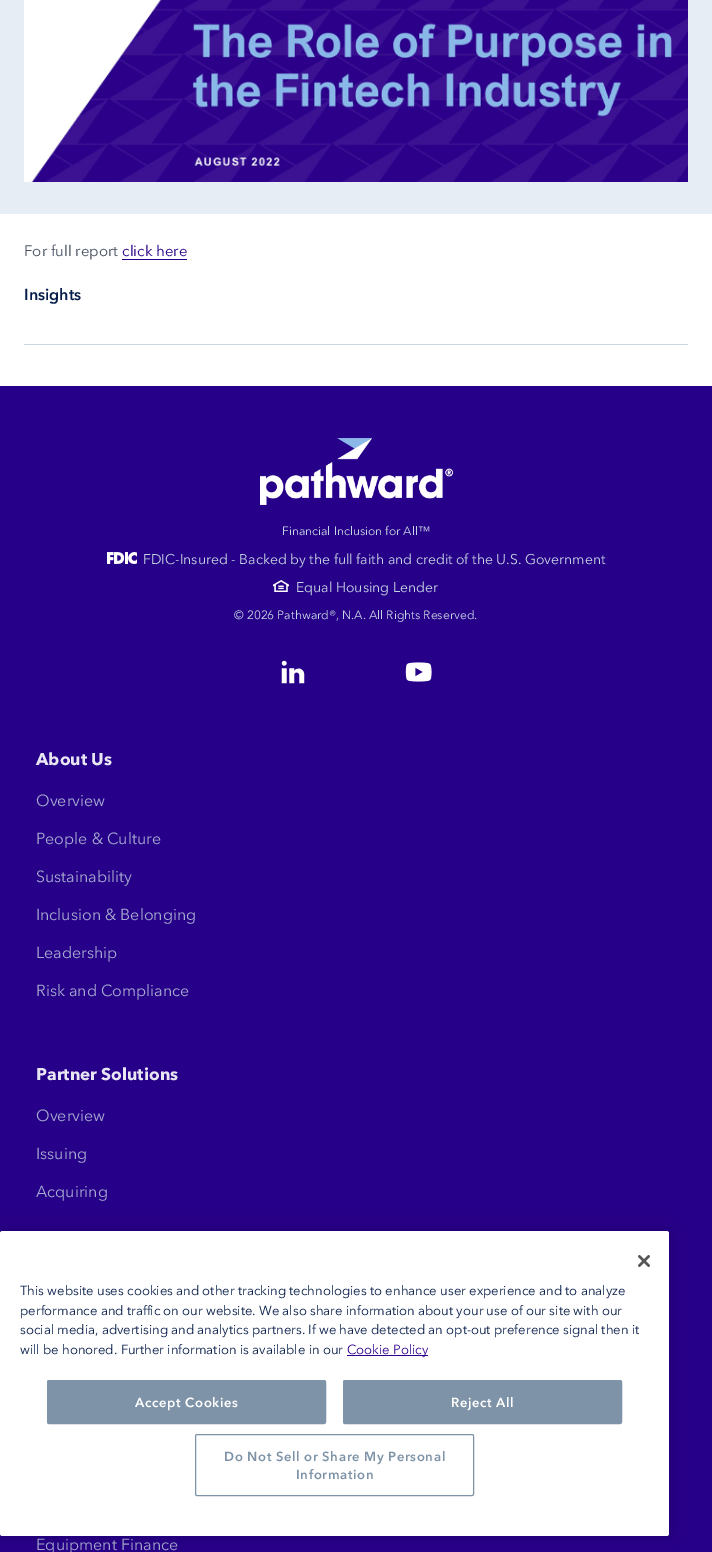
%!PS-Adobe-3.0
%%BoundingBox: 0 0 712 1552
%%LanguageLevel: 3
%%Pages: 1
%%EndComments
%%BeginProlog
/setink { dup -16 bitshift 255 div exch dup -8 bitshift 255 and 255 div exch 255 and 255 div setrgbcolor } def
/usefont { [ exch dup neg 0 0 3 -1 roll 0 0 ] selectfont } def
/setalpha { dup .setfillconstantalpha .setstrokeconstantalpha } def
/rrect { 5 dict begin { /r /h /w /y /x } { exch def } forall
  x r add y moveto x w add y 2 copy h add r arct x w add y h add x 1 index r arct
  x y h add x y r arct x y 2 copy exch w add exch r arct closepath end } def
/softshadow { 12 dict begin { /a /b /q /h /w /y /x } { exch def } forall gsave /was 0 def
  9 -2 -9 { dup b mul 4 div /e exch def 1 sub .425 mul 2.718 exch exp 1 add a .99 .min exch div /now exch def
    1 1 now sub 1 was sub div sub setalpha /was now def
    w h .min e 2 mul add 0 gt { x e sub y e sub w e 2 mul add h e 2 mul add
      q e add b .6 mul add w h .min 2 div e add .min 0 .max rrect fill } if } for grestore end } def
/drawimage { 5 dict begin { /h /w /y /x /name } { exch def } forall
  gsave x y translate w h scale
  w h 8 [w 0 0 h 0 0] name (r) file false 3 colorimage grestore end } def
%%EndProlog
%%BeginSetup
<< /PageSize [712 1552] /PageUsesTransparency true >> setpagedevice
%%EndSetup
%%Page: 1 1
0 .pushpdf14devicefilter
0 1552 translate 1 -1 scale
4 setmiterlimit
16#FFFFFF setink
0 0 712 1552 rectfill
16#E6EDF4 setink
0 0 712 214 rectfill
(img1.raw) 24 0 664 182 drawimage
/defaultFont-Regular 15 usefont
16#454F5F setink
24 256 moveto (For full report) show
16#270089 setink
122 256 moveto (click here) show
122 259 65 1 rectfill
/defaultFont-Bold 16 usefont
16#071D49 setink
24 300 moveto (Insights) show
16#C6D6E3 setink
24 344 664 1 rectfill
16#270089 setink
0 386 712 1166 rectfill
(img2.raw) 260 438 193 67 drawimage
/defaultFont-Regular 12 usefont
16#C6D6E3 setink
282 535 moveto (Financial Inclusion for All™) show
(img3.raw) 107 552 30 12 drawimage
/defaultFont-Regular 14 usefont
143 564 moveto (FDIC-Insured - Backed by the full faith and credit of the U.S. Government) show
(img4.raw) 273 580 16 12 drawimage
296 592 moveto (Equal Housing Lender) show
/defaultFont-Regular 12 usefont
234 619 moveto (© 2026 Pathward®, N.A. All Rights Reserved.) show
(img5.raw) 281 660 24 24 drawimage
(img6.raw) 405 662 27 20 drawimage
/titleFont-Bold 17 usefont
16#E9E6F3 setink
36 765 moveto (About Us) show
/defaultFont-Regular 16 usefont
16#A6ABD1 setink
[
    [(Overview) 36 806]
    [(People & Culture) 36 844]
    [(Sustainability) 36 882]
    [(Inclusion & Belonging) 36 920]
    [(Leadership) 36 958]
    [(Risk and Compliance) 36 996]
] { aload pop moveto show } forall
/titleFont-Bold 17 usefont
16#E9E6F3 setink
36 1080 moveto (Partner Solutions) show
/defaultFont-Regular 16 usefont
16#A6ABD1 setink
[
    [(Overview) 36 1121]
    [(Issuing) 36 1159]
    [(Acquiring) 36 1197]
    [(Equipment Finance) 36 1550]
] { aload pop moveto show } forall
16#000000 setink
0 1231 669 305 2.5 9 0.2 softshadow
16#FFFFFF setink
0 1231 669 305 2.5 rrect fill
(img7.raw) 638 1255 12 12 drawimage
/defaultFont-Regular 13.1 usefont
16#071D49 setink
[
    [(This website uses cookies and other tracking technologies to enhance user experience and to analyze) 20 1295]
    [(performance and traffic on our website. We also share information about your use of our site with our) 20 1315]
    [(social media, advertising and analytics partners. If we have detected an opt-out preference signal then it) 20 1334]
    [(will be honored. Further information is available in our) 20 1354]
] { aload pop moveto show } forall
16#2E008B setink
347 1355 81 1 rectfill
347 1354 moveto (Cookie Policy) show
16#7E93A7 setink
47.5 1380.5 278 43 1.5 rrect gsave fill grestore
stroke
/defaultFont-Bold 13.1 usefont
16#FFFFFF setink
135 1407 moveto 0.65 0 (Accept Cookies) ashow
16#7E93A7 setink
343.5 1380.5 278 43 1.5 rrect gsave fill grestore
stroke
16#FFFFFF setink
451 1407 moveto 0.65 0 (Reject All) ashow
16#7E93A7 setink
195.5 1434.5 278 61 1.5 rrect stroke
224 1461 moveto 0.65 0 (Do Not Sell or Share My Personal) ashow
296 1479 moveto 0.65 0 (Information) ashow
.poppdf14devicefilter showpage
%%EOF
